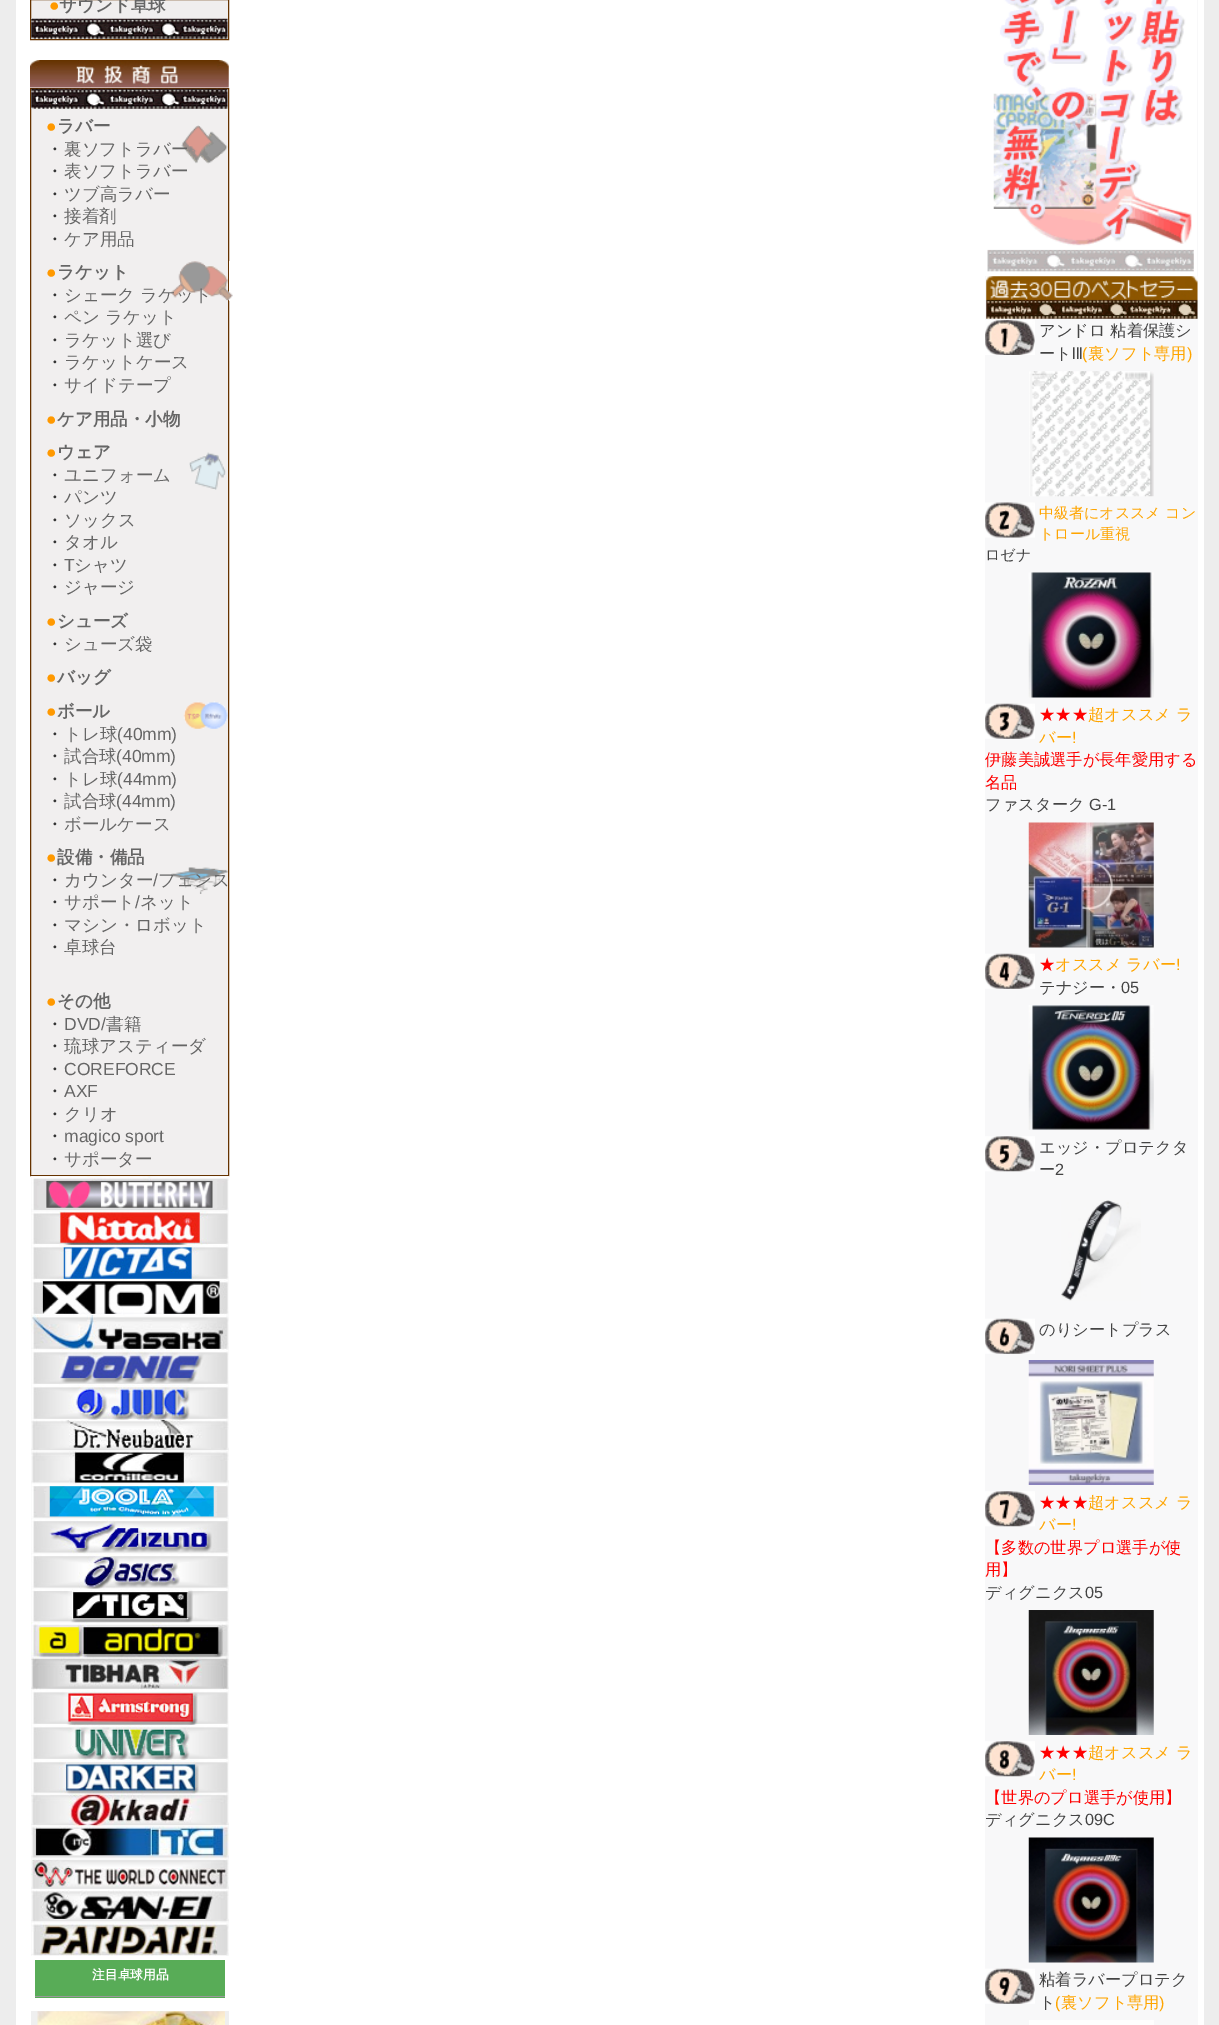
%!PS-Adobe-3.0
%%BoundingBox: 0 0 1219 2025
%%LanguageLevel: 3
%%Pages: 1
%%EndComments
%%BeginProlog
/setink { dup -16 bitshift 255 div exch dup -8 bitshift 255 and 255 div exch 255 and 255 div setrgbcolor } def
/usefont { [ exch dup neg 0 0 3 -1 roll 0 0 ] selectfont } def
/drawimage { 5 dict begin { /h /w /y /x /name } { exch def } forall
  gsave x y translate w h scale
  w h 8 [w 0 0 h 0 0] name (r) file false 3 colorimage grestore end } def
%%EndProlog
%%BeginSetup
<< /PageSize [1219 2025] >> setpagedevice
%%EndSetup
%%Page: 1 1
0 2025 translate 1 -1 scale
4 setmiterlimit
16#EDEDED setink
0 0 1219 2025 rectfill
16#FFFFFF setink
16 0 1188 2025 rectfill
16#F0EEEE setink
30.5 -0.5 moveto 228.5 -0.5 lineto 228.5 39.5 lineto 30.5 39.5 lineto closepath gsave fill grestore
16#663300 setink
stroke
/LiberationSans-Bold 17.5 usefont
16#FF9900 setink
49 11 moveto (●) show
/WenQuanYiZenHei-Bold 17.5 usefont
16#666666 setink
59 11 moveto (サウンド卓球) show
(img1.raw) 31 18 197 21 drawimage
(img2.raw) 30 60 199 28 drawimage
16#F1EFEF setink
30.5 88.5 moveto 228.5 88.5 lineto 228.5 1175.5 lineto 30.5 1175.5 lineto closepath gsave fill grestore
16#663300 setink
stroke
(img3.raw) 31 88 197 21 drawimage
(img4.raw) 181 125 47 39 drawimage
/LiberationSans-Bold 17.5 usefont
16#FF9900 setink
46 132 moveto (●) show
/WenQuanYiZenHei-Bold 17.5 usefont
16#666666 setink
57 132 moveto (ラバー) show
/WenQuanYiZenHei-Medium 17.5 usefont
16#333333 setink
46 155 moveto (・) show
16#666666 setink
64 155 moveto (裏ソフトラバー) show
16#333333 setink
46 177 moveto (・) show
16#666666 setink
64 177 moveto (表ソフトラバー) show
16#333333 setink
46 200 moveto (・) show
16#666666 setink
64 200 moveto (ツブ高ラバー) show
16#333333 setink
46 222 moveto (・) show
16#666666 setink
64 222 moveto (接着剤) show
16#333333 setink
46 245 moveto (・) show
16#666666 setink
64 245 moveto (ケア用品) show
(img5.raw) 171 261 62 40 drawimage
/LiberationSans-Bold 17.5 usefont
16#FF9900 setink
46 278 moveto (●) show
/WenQuanYiZenHei-Bold 17.5 usefont
16#666666 setink
57 278 moveto (ラケット) show
/WenQuanYiZenHei-Medium 17.5 usefont
16#333333 setink
46 301 moveto (・) show
16#666666 setink
64 301 moveto (シェーク ラケット) show
16#333333 setink
46 323 moveto (・) show
16#666666 setink
64 323 moveto (ペン ラケット) show
16#333333 setink
46 346 moveto (・) show
16#666666 setink
64 346 moveto (ラケット選び) show
16#333333 setink
46 368 moveto (・) show
16#666666 setink
64 368 moveto (ラケットケース) show
16#333333 setink
46 391 moveto (・) show
16#666666 setink
64 391 moveto (サイドテープ) show
/LiberationSans-Bold 17.5 usefont
16#FF9900 setink
46 425 moveto (●) show
/WenQuanYiZenHei-Bold 17.5 usefont
16#666666 setink
57 425 moveto (ケア用品・小物) show
(img6.raw) 189 452 37 38 drawimage
/LiberationSans-Bold 17.5 usefont
16#FF9900 setink
46 458 moveto (●) show
/WenQuanYiZenHei-Bold 17.5 usefont
16#666666 setink
57 458 moveto (ウェア) show
/WenQuanYiZenHei-Medium 17.5 usefont
16#333333 setink
46 481 moveto (・) show
16#666666 setink
64 481 moveto (ユニフォーム) show
16#333333 setink
46 503 moveto (・) show
16#666666 setink
64 503 moveto (パンツ) show
16#333333 setink
46 526 moveto (・) show
16#666666 setink
64 526 moveto (ソックス) show
16#333333 setink
46 548 moveto (・) show
16#666666 setink
64 548 moveto (タオル) show
16#333333 setink
46 571 moveto (・) show
/LiberationSans-Regular 17.5 usefont
16#666666 setink
64 571 moveto (T) show
/WenQuanYiZenHei-Medium 17.5 usefont
74 571 moveto (シャツ) show
16#333333 setink
46 593 moveto (・) show
16#666666 setink
64 593 moveto (ジャージ) show
/LiberationSans-Bold 17.5 usefont
16#FF9900 setink
46 627 moveto (●) show
/WenQuanYiZenHei-Bold 17.5 usefont
16#666666 setink
57 627 moveto (シューズ) show
/WenQuanYiZenHei-Medium 17.5 usefont
16#333333 setink
46 650 moveto (・) show
16#666666 setink
64 650 moveto (シューズ袋) show
/LiberationSans-Bold 17.5 usefont
16#FF9900 setink
46 683 moveto (●) show
/WenQuanYiZenHei-Bold 17.5 usefont
16#666666 setink
57 683 moveto (バッグ) show
(img7.raw) 183 701 45 28 drawimage
/LiberationSans-Bold 17.5 usefont
16#FF9900 setink
46 717 moveto (●) show
/WenQuanYiZenHei-Bold 17.5 usefont
16#666666 setink
57 717 moveto (ボール) show
/WenQuanYiZenHei-Medium 17.5 usefont
16#333333 setink
46 740 moveto (・) show
16#666666 setink
64 740 moveto (トレ球) show
/LiberationSans-Regular 17.5 usefont
117 740 moveto (\(40mm\)) show
/WenQuanYiZenHei-Medium 17.5 usefont
16#333333 setink
46 762 moveto (・) show
16#666666 setink
64 762 moveto (試合球) show
/LiberationSans-Regular 17.5 usefont
116 762 moveto (\(40mm\)) show
/WenQuanYiZenHei-Medium 17.5 usefont
16#333333 setink
46 785 moveto (・) show
16#666666 setink
64 785 moveto (トレ球) show
/LiberationSans-Regular 17.5 usefont
117 785 moveto (\(44mm\)) show
/WenQuanYiZenHei-Medium 17.5 usefont
16#333333 setink
46 807 moveto (・) show
16#666666 setink
64 807 moveto (試合球) show
/LiberationSans-Regular 17.5 usefont
116 807 moveto (\(44mm\)) show
/WenQuanYiZenHei-Medium 17.5 usefont
16#333333 setink
46 830 moveto (・) show
16#666666 setink
64 830 moveto (ボールケース) show
(img8.raw) 171 867 57 27 drawimage
/LiberationSans-Bold 17.5 usefont
16#FF9900 setink
46 863 moveto (●) show
/WenQuanYiZenHei-Bold 17.5 usefont
16#666666 setink
57 863 moveto (設備・備品) show
/WenQuanYiZenHei-Medium 17.5 usefont
16#333333 setink
46 886 moveto (・) show
16#666666 setink
64 886 moveto (カウンター) show
/LiberationSans-Regular 17.5 usefont
153 886 moveto (/) show
/WenQuanYiZenHei-Medium 17.5 usefont
158 886 moveto (フェンス) show
16#333333 setink
46 908 moveto (・) show
16#666666 setink
64 908 moveto (サポート) show
/LiberationSans-Regular 17.5 usefont
135 908 moveto (/) show
/WenQuanYiZenHei-Medium 17.5 usefont
140 908 moveto (ネット) show
16#333333 setink
46 931 moveto (・) show
16#666666 setink
64 931 moveto (マシン・ロボット) show
16#333333 setink
46 953 moveto (・) show
16#666666 setink
64 953 moveto (卓球台) show
/LiberationSans-Bold 17.5 usefont
16#FF9900 setink
46 1007 moveto (●) show
/WenQuanYiZenHei-Bold 17.5 usefont
16#666666 setink
57 1007 moveto (その他) show
/WenQuanYiZenHei-Medium 17.5 usefont
16#333333 setink
46 1030 moveto (・) show
/LiberationSans-Regular 17.5 usefont
16#666666 setink
64 1030 moveto (DVD/) show
/WenQuanYiZenHei-Medium 17.5 usefont
106 1030 moveto (書籍) show
16#333333 setink
46 1052 moveto (・) show
16#666666 setink
64 1052 moveto (琉球アスティーダ) show
16#333333 setink
46 1075 moveto (・) show
/LiberationSans-Regular 17.5 usefont
16#666666 setink
64 1075 moveto (COREFORCE) show
/WenQuanYiZenHei-Medium 17.5 usefont
16#333333 setink
46 1097 moveto (・) show
/LiberationSans-Regular 17.5 usefont
16#666666 setink
64 1097 moveto (AXF) show
/WenQuanYiZenHei-Medium 17.5 usefont
16#333333 setink
46 1120 moveto (・) show
16#666666 setink
64 1120 moveto (クリオ) show
16#333333 setink
46 1142 moveto (・) show
/LiberationSans-Regular 17.5 usefont
16#666666 setink
64 1142 moveto (magico sport) show
/WenQuanYiZenHei-Medium 17.5 usefont
16#333333 setink
46 1165 moveto (・) show
16#666666 setink
64 1165 moveto (サポーター) show
16#EFEFEF setink
31 1176 198 780 rectfill
(img9.raw) 31 1176 198 36 drawimage
(img10.raw) 31 1211 198 34 drawimage
(img11.raw) 31 1245 198 35 drawimage
(img12.raw) 31 1280 198 35 drawimage
(img13.raw) 31 1315 198 35 drawimage
(img14.raw) 31 1350 198 35 drawimage
(img15.raw) 31 1385 198 35 drawimage
(img16.raw) 31 1420 198 32 drawimage
(img17.raw) 31 1451 198 33 drawimage
(img18.raw) 31 1483 198 36 drawimage
(img19.raw) 31 1519 198 35 drawimage
(img20.raw) 31 1554 198 35 drawimage
(img21.raw) 31 1588 198 35 drawimage
(img22.raw) 31 1622 198 36 drawimage
(img23.raw) 31 1657 198 33 drawimage
(img24.raw) 31 1690 198 35 drawimage
(img25.raw) 31 1725 198 35 drawimage
(img26.raw) 31 1760 198 34 drawimage
(img27.raw) 31 1793 198 34 drawimage
(img28.raw) 31 1826 198 33 drawimage
(img29.raw) 31 1859 198 31 drawimage
(img30.raw) 31 1890 198 33 drawimage
(img31.raw) 31 1922 198 34 drawimage
16#58AC57 setink
35 1960 190 38 rectfill
16#999999 setink
35 1996 190 1 rectfill
/WenQuanYiZenHei-Bold 12.75 usefont
16#FFFFFF setink
92 1979 moveto (注目卓球用品) show
16#EFEFEF setink
31 2011 198 14 rectfill
(img32.raw) 37 2011 188 14 drawimage
16#F8F8F9 setink
985 0 213 2025 rectfill
(img33.raw) 985 0 212 276 drawimage
(img34.raw) 986 276 212 43 drawimage
(img35.raw) 985 320 50 35 drawimage
/WenQuanYiZenHei-Medium 16.25 usefont
16#444444 setink
1039 336 moveto (アンドロ 粘着保護シ) show
1039 359 moveto (ート) show
/LiberationSans-Regular 16.25 usefont
1072 359 moveto (lll) show
16#FFA500 setink
1082 359 moveto (\() show
/WenQuanYiZenHei-Medium 16.25 usefont
1088 359 moveto (裏ソフト専用) show
/LiberationSans-Regular 16.25 usefont
1187 359 moveto (\)) show
(img36.raw) 1029 371 125 126 drawimage
(img37.raw) 985 502 50 36 drawimage
/WenQuanYiZenHei-Medium 15 usefont
1039 518 moveto (中級者にオススメ コン) show
1039 539 moveto (トロール重視) show
16#444444 setink
985 560 moveto (ロゼナ) show
(img38.raw) 1028 572 126 126 drawimage
(img39.raw) 985 703 50 36 drawimage
/WenQuanYiZenHei-Medium 16.25 usefont
16#FF0000 setink
1039 720 moveto (★★★) show
16#FFA500 setink
1088 720 moveto (超オススメ ラ) show
1039 743 moveto (バー) show
/LiberationSans-Regular 16.25 usefont
1072 743 moveto (!) show
/WenQuanYiZenHei-Medium 16.25 usefont
16#FF0000 setink
985 765 moveto (伊藤美誠選手が長年愛用する) show
985 788 moveto (名品) show
16#444444 setink
985 810 moveto (ファスターク) show
/LiberationSans-Regular 16.25 usefont
1089 810 moveto (G-1) show
(img40.raw) 1028 822 126 126 drawimage
(img41.raw) 985 953 50 36 drawimage
/WenQuanYiZenHei-Medium 16.25 usefont
16#FF0000 setink
1039 970 moveto (★) show
16#FFA500 setink
1055 970 moveto (オススメ ラバー) show
/LiberationSans-Regular 16.25 usefont
1176 970 moveto (!) show
/WenQuanYiZenHei-Medium 16.25 usefont
16#444444 setink
1039 993 moveto (テナジー・) show
/LiberationSans-Regular 16.25 usefont
1121 993 moveto (05) show
(img42.raw) 1028 1005 126 125 drawimage
(img43.raw) 985 1136 50 36 drawimage
/WenQuanYiZenHei-Medium 16.25 usefont
1039 1153 moveto (エッジ・プロテクタ) show
1039 1175 moveto (ー) show
/LiberationSans-Regular 16.25 usefont
1055 1175 moveto (2) show
(img44.raw) 1061 1200 80 101 drawimage
(img45.raw) 985 1318 50 36 drawimage
/WenQuanYiZenHei-Medium 16.25 usefont
1039 1335 moveto (のりシートプラス) show
(img46.raw) 1028 1360 126 125 drawimage
(img47.raw) 985 1491 50 36 drawimage
16#FF0000 setink
1039 1508 moveto (★★★) show
16#FFA500 setink
1088 1508 moveto (超オススメ ラ) show
1039 1530 moveto (バー) show
/LiberationSans-Regular 16.25 usefont
1072 1530 moveto (!) show
/WenQuanYiZenHei-Medium 16.25 usefont
16#FF0000 setink
985 1553 moveto (【多数の世界プロ選手が使) show
985 1575 moveto (用】) show
16#444444 setink
985 1598 moveto (ディグニクス) show
/LiberationSans-Regular 16.25 usefont
1085 1598 moveto (05) show
(img48.raw) 1028 1610 126 125 drawimage
(img49.raw) 985 1741 50 36 drawimage
/WenQuanYiZenHei-Medium 16.25 usefont
16#FF0000 setink
1039 1758 moveto (★★★) show
16#FFA500 setink
1088 1758 moveto (超オススメ ラ) show
1039 1780 moveto (バー) show
/LiberationSans-Regular 16.25 usefont
1072 1780 moveto (!) show
/WenQuanYiZenHei-Medium 16.25 usefont
16#FF0000 setink
985 1803 moveto (【世界のプロ選手が使用】) show
16#444444 setink
985 1825 moveto (ディグニクス) show
/LiberationSans-Regular 16.25 usefont
1085 1825 moveto (09C) show
(img50.raw) 1028 1837 126 126 drawimage
(img51.raw) 985 1968 50 36 drawimage
/WenQuanYiZenHei-Medium 16.25 usefont
1039 1985 moveto (粘着ラバープロテク) show
1039 2008 moveto (ト) show
/LiberationSans-Regular 16.25 usefont
16#FFA500 setink
1055 2008 moveto (\() show
/WenQuanYiZenHei-Medium 16.25 usefont
1061 2008 moveto (裏ソフト専用) show
/LiberationSans-Regular 16.25 usefont
1159 2008 moveto (\)) show
16#FEFEFE setink
1029 2020 125 5 rectfill
showpage
%%EOF
